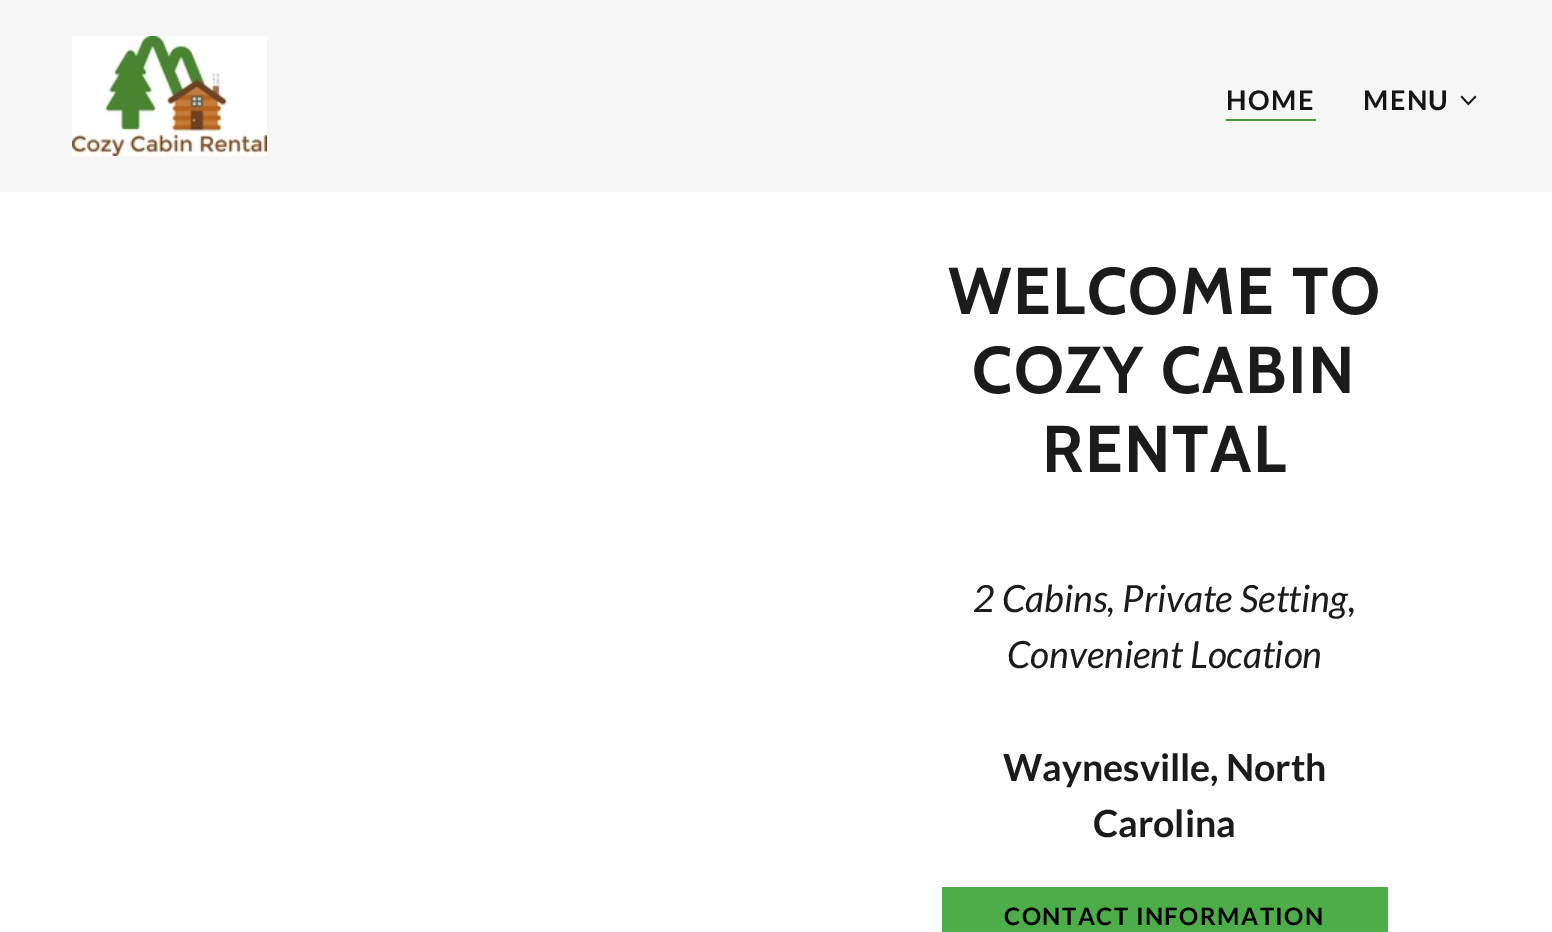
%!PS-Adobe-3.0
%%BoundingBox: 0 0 1552 932
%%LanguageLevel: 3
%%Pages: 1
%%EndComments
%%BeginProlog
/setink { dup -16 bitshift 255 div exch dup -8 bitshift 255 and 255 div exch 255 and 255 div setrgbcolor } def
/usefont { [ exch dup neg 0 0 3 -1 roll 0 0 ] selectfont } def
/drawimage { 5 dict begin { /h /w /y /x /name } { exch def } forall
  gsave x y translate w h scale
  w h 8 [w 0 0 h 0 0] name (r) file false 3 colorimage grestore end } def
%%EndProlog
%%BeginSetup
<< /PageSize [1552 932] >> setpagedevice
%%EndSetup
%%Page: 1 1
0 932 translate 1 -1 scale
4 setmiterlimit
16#FFFFFF setink
0 0 1552 932 rectfill
16#F6F6F6 setink
0 0 1552 192 rectfill
(img1.raw) 72 36 195 120 drawimage
16#439B40 setink
1226 119 90 2 rectfill
/Lato-Bold 27 usefont
16#151515 setink
1226 110 moveto 1.5 0 (HOME) ashow
1363 110 moveto 1.5 0 (MENU) ashow
(img2.raw) 1460 95 17 11 drawimage
/Cabin-Bold 66 usefont
16#1B1B1B setink
948 314 moveto 1.5 0 (WELCOME TO) ashow
972 393 moveto 1.5 0 (COZY CABIN) ashow
1042 472 moveto 1.5 0 (RENTAL) ashow
/Lato-Italic 37.5 usefont
973 612 moveto (2 Cabins, Private Setting,) show
1007 668 moveto (Convenient Location) show
/Lato-Bold 37.5 usefont
1003 781 moveto (Waynesville, North) show
1093 837 moveto (Carolina) show
16#4CAD49 setink
942 887 446 45 rectfill
/Lato-Bold 24 usefont
16#000000 setink
1004 925 moveto 1.5 0 (CONTACT INFORMATION) ashow
showpage
%%EOF
